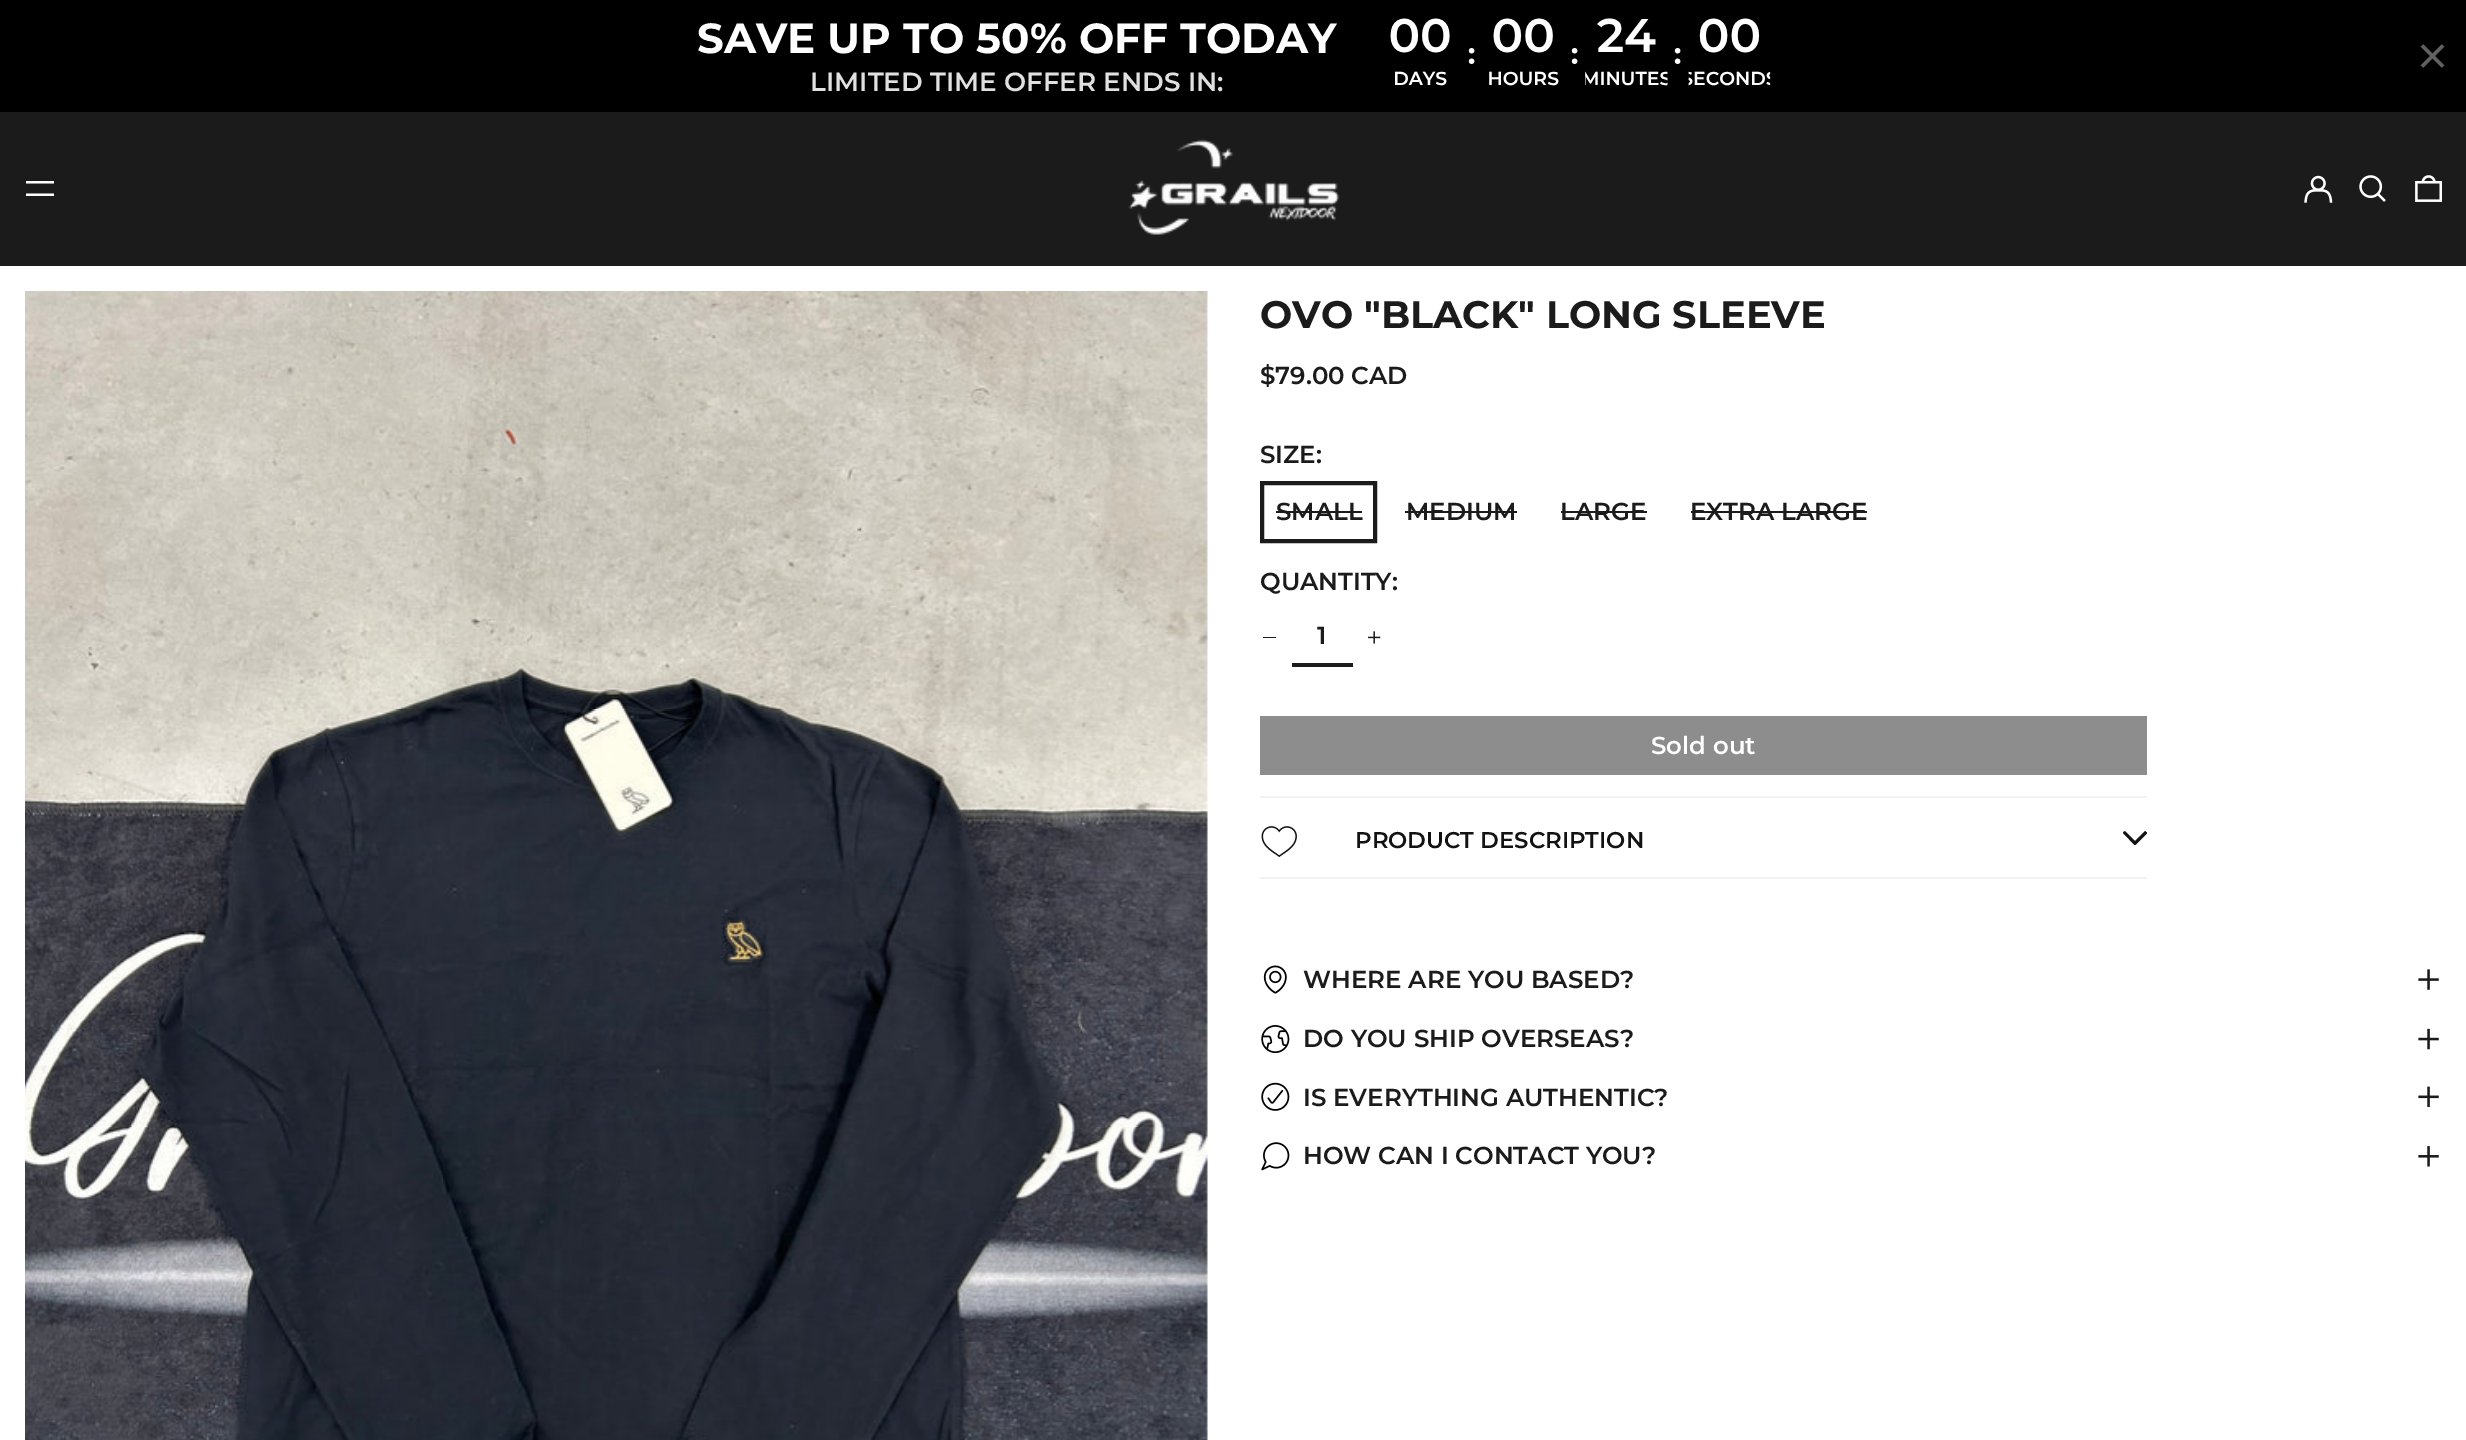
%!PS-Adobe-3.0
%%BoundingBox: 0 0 2466 1440
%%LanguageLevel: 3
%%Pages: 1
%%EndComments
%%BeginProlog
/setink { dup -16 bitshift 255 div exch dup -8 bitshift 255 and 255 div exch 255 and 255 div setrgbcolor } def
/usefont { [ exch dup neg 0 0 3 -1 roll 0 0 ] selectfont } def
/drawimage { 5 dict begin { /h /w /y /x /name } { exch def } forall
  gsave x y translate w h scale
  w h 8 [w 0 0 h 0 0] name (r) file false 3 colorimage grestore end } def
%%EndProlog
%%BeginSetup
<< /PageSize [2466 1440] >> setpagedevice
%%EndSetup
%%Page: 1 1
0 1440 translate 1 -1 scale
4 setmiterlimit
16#FFFFFF setink
0 0 2466 1440 rectfill
16#000000 setink
0 0 2466 112 rectfill
/Montserrat-Bold 42 usefont
16#FFFFFF setink
697 53 moveto (SAVE UP TO 50% OFF TODAY) show
/Montserrat-SemiBold 26.25 usefont
16#E0E0E0 setink
810 91 moveto (LIMITED TIME OFFER ENDS IN:) show
(img1.raw) 1390 18 381 68 drawimage
16#616161 setink
3.5 setlinewidth
2443 45.5 moveto 2422 66.5 lineto 2443 66.5 moveto 2422 45.5 lineto stroke
16#1C1B1B setink
0 112 2466 154 rectfill
16#FFFFFF setink
54 193.5 moveto 54 196 lineto 26 196 lineto 26 193.5 lineto closepath 54 181 moveto 54 183.5 lineto 26 183.5 lineto 26 181 lineto closepath eofill
(img2.raw) 1128 139 212 96 drawimage
(img3.raw) 2304 175 29 28 drawimage
(img4.raw) 2359 175 27 27 drawimage
(img5.raw) 2415 175 27 27 drawimage
(img6.raw) 25 291 1183 1149 drawimage
/Montserrat-Bold 38.25 usefont
16#1C1B1B setink
1260 328 moveto (OVO "BLACK" LONG SLEEVE) show
/Montserrat-SemiBold 24.5 usefont
1260 384 moveto ($79.00 CAD) show
1260 463 moveto (SIZE:) show
4 setlinewidth
1262 483 113 58 rectstroke
1276 520 moveto (SMALL) show
1276 511 86 2 rectfill
1406 520 moveto (MEDIUM) show
1405 511 112 2 rectfill
1560 520 moveto (LARGE) show
1561 511 86 2 rectfill
1690 520 moveto (EXTRA LARGE) show
1691 511 176 2 rectfill
1260 590 moveto (QUANTITY:) show
1263 637 13 1 rectfill
1292 663 61 4 rectfill
1317 644 moveto (1) show
(img7.raw) 1368 631 13 13 drawimage
16#8E8D8D setink
1260 716 887 59 rectfill
16#FFFFFF setink
1651 754 moveto (Sold out) show
16#F2F2F2 setink
1260 796 887 2 rectfill
1260 877 887 2 rectfill
(img8.raw) 1261 826 36 32 drawimage
/Montserrat-SemiBold 22.75 usefont
16#121212 setink
1355 848 moveto (PRODUCT DESCRIPTION) show
gsave
2123 831 24 14 rectclip
2123.5 832 moveto 2123 833 lineto 2135 845.5 lineto 2147.5 833 lineto 2145 831 lineto 2135 841 lineto 2125 831 lineto closepath fill
grestore
(img9.raw) 1263 965 24 29 drawimage
/Montserrat-SemiBold 24.5 usefont
16#1C1B1B setink
1303 988 moveto (WHERE ARE YOU BASED?) show
(img10.raw) 2418 969 21 21 drawimage
(img11.raw) 1261 1025 29 29 drawimage
1303 1047 moveto (DO YOU SHIP OVERSEAS?) show
(img12.raw) 2418 1028 21 22 drawimage
(img13.raw) 1261 1082 29 29 drawimage
1303 1106 moveto (IS EVERYTHING AUTHENTIC?) show
(img14.raw) 2418 1086 21 21 drawimage
(img15.raw) 1261 1142 29 29 drawimage
1303 1164 moveto (HOW CAN I CONTACT YOU?) show
(img16.raw) 2418 1146 21 21 drawimage
showpage
%%EOF
